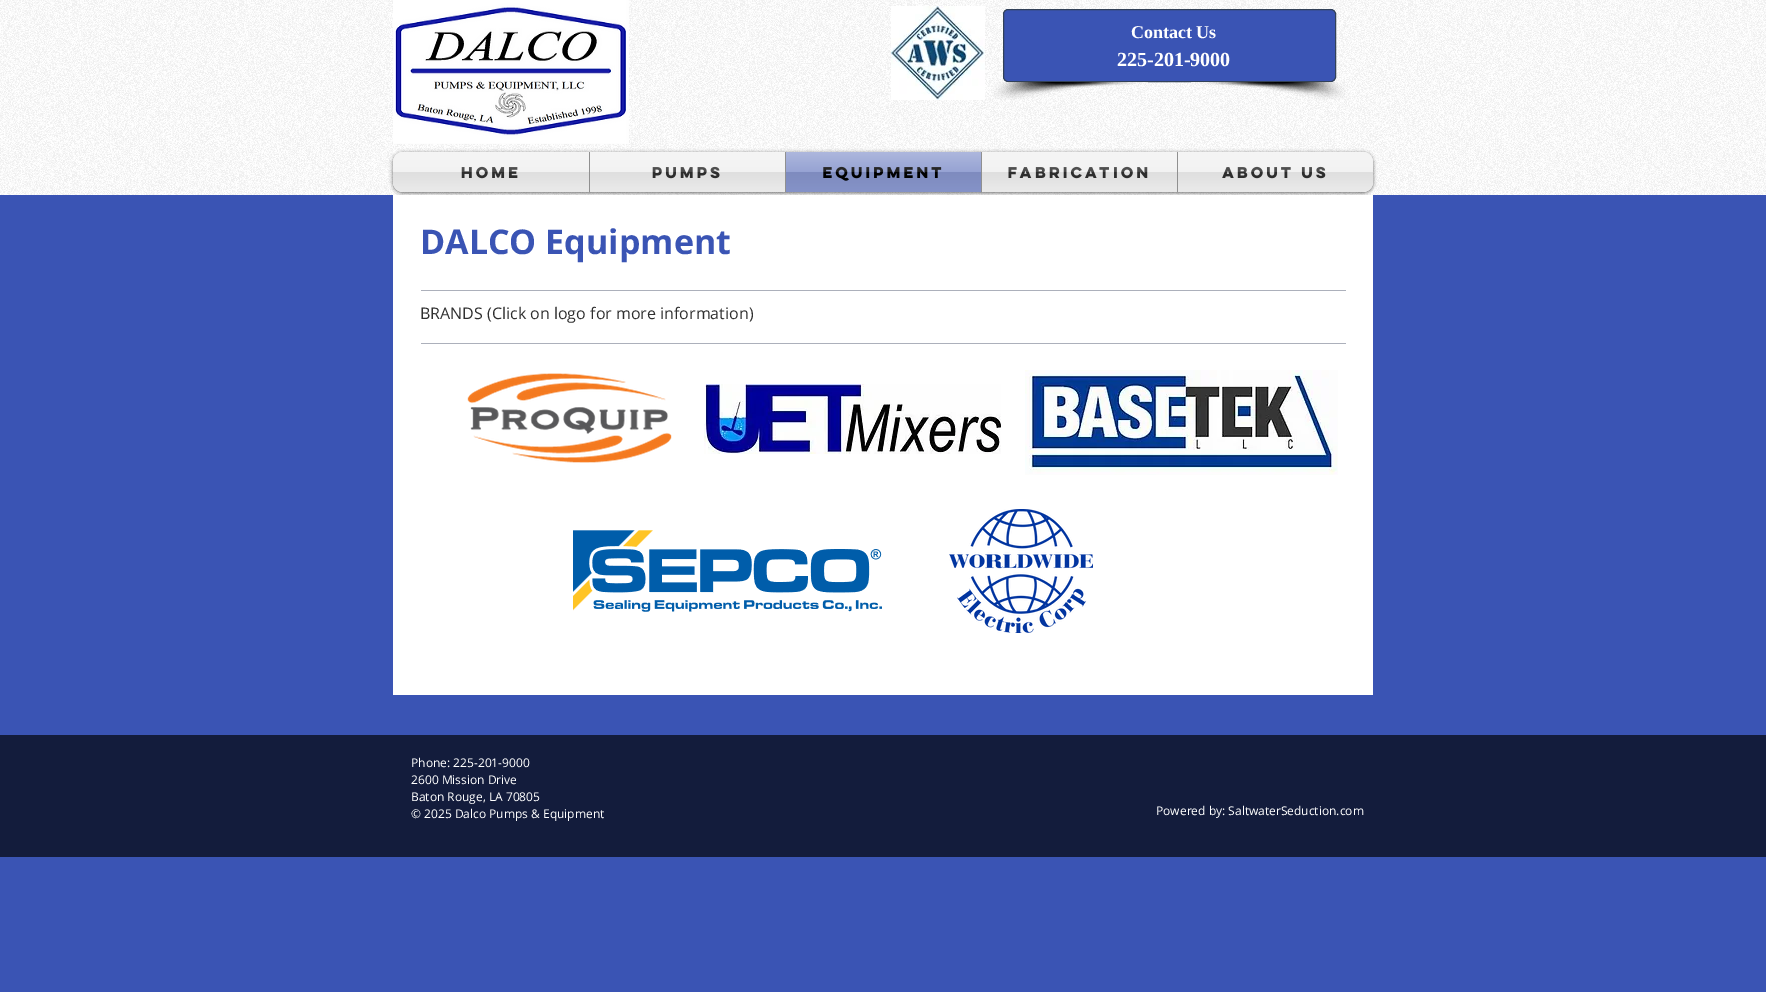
%!PS-Adobe-3.0
%%BoundingBox: 0 0 1766 992
%%LanguageLevel: 3
%%Pages: 1
%%EndComments
%%BeginProlog
/setink { dup -16 bitshift 255 div exch dup -8 bitshift 255 and 255 div exch 255 and 255 div setrgbcolor } def
/usefont { [ exch dup neg 0 0 3 -1 roll 0 0 ] selectfont } def
/setalpha { dup .setfillconstantalpha .setstrokeconstantalpha } def
/rrect { 5 dict begin { /r /h /w /y /x } { exch def } forall
  x r add y moveto x w add y 2 copy h add r arct x w add y h add x 1 index r arct
  x y h add x y r arct x y 2 copy exch w add exch r arct closepath end } def
/softshadow { 12 dict begin { /a /b /q /h /w /y /x } { exch def } forall gsave /was 0 def
  9 -2 -9 { dup b mul 4 div /e exch def 1 sub .425 mul 2.718 exch exp 1 add a .99 .min exch div /now exch def
    1 1 now sub 1 was sub div sub setalpha /was now def
    w h .min e 2 mul add 0 gt { x e sub y e sub w e 2 mul add h e 2 mul add
      q e add b .6 mul add w h .min 2 div e add .min 0 .max rrect fill } if } for grestore end } def
/drawimage { 5 dict begin { /h /w /y /x /name } { exch def } forall
  gsave x y translate w h scale
  w h 8 [w 0 0 h 0 0] name (r) file false 3 colorimage grestore end } def
%%EndProlog
%%BeginSetup
<< /PageSize [1766 992] /PageUsesTransparency true >> setpagedevice
%%EndSetup
%%Page: 1 1
0 .pushpdf14devicefilter
0 992 translate 1 -1 scale
4 setmiterlimit
16#3A54B4 setink
0 0 1766 992 rectfill
16#FFFFFF setink
0 0 1766 195 rectfill
(img1.raw) 0 0 1766 195 drawimage
(img2.raw) 393 0 236 144 drawimage
(img3.raw) 891 6 94 94 drawimage
16#3A54B4 setink
1003.5 9.5 332 72 4.5 rrect gsave fill grestore
16#324158 setink
stroke
/LiberationSerif-Bold 18 usefont
16#FFFFFF setink
1131 38 moveto (Contact Us) show
/LiberationSerif-Bold 20 usefont
1117 66 moveto (225-201-9000) show
(img4.raw) 994 82 154 18 drawimage
(img5.raw) 1191 82 154 18 drawimage
16#000000 setink
393 153 980 40 10 2 0.6 softshadow
(img6.raw) 393 152 980 40 drawimage
16#F0F0F0 setink
403 152 moveto 589 152 lineto 589 192 lineto 403 192 lineto 397.5 192 393 187.5 393 182 curveto 393 162 lineto 393 156.5 397.5 152 403 152 curveto closepath fill
/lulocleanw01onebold-Bold 14 usefont
16#303030 setink
461 178 moveto (Home) show
(img7.raw) 393 152 196 40 drawimage
16#F0F0F0 setink
590 152 195 40 rectfill
16#909090 setink
589 152 1 40 rectfill
16#303030 setink
652 178 moveto (PUMPS) show
(img8.raw) 590 152 195 40 drawimage
16#8896CD setink
786 152 195 40 rectfill
16#909090 setink
785 152 1 40 rectfill
16#000000 setink
822 178 moveto (EQUIPMENT) show
(img9.raw) 786 152 195 40 drawimage
16#F0F0F0 setink
982 152 195 40 rectfill
16#909090 setink
981 152 1 40 rectfill
16#303030 setink
1008 178 moveto (FABRICATION) show
(img10.raw) 982 152 195 40 drawimage
16#F0F0F0 setink
1177 152 moveto 1363 152 lineto 1368.5 152 1373 156.5 1373 162 curveto 1373 182 lineto 1373 187.5 1368.5 192 1363 192 curveto 1177 192 lineto closepath fill
16#909090 setink
1177 152 1 40 rectfill
16#303030 setink
1222 178 moveto (About Us) show
(img11.raw) 1178 152 195 40 drawimage
16#FFFFFF setink
393 195 980 500 rectfill
/OpenSans-Bold 34 usefont
16#3A54B4 setink
420 254 moveto (DALCO Equipment) show
16#ACB0BB setink
421 290 925 1 rectfill
/OpenSans-Regular 16 usefont
16#303030 setink
420 319 moveto (BRANDS \(Click on logo for more information\)) show
16#ACB0BB setink
421 343 925 1 rectfill
(img12.raw) 467 373 205 90 drawimage
(img13.raw) 704 384 297 70 drawimage
(img14.raw) 1025 370 313 105 drawimage
(img15.raw) 573 530 309 82 drawimage
(img16.raw) 949 509 144 124 drawimage
16#131C3C setink
0 735 1766 122 rectfill
/OpenSans-Regular 12 usefont
16#FFFFFF setink
[
    [(Phone: 225-201-9000) 411 767]
    [(2600 Mission Drive) 411 784]
    [(Baton Rouge, LA 70805) 411 801]
    [(© 2025 Dalco Pumps & Equipment) 411 818]
    [(Powered by: SaltwaterSeduction.com) 1156 815]
] { aload pop moveto show } forall
.poppdf14devicefilter showpage
%%EOF
